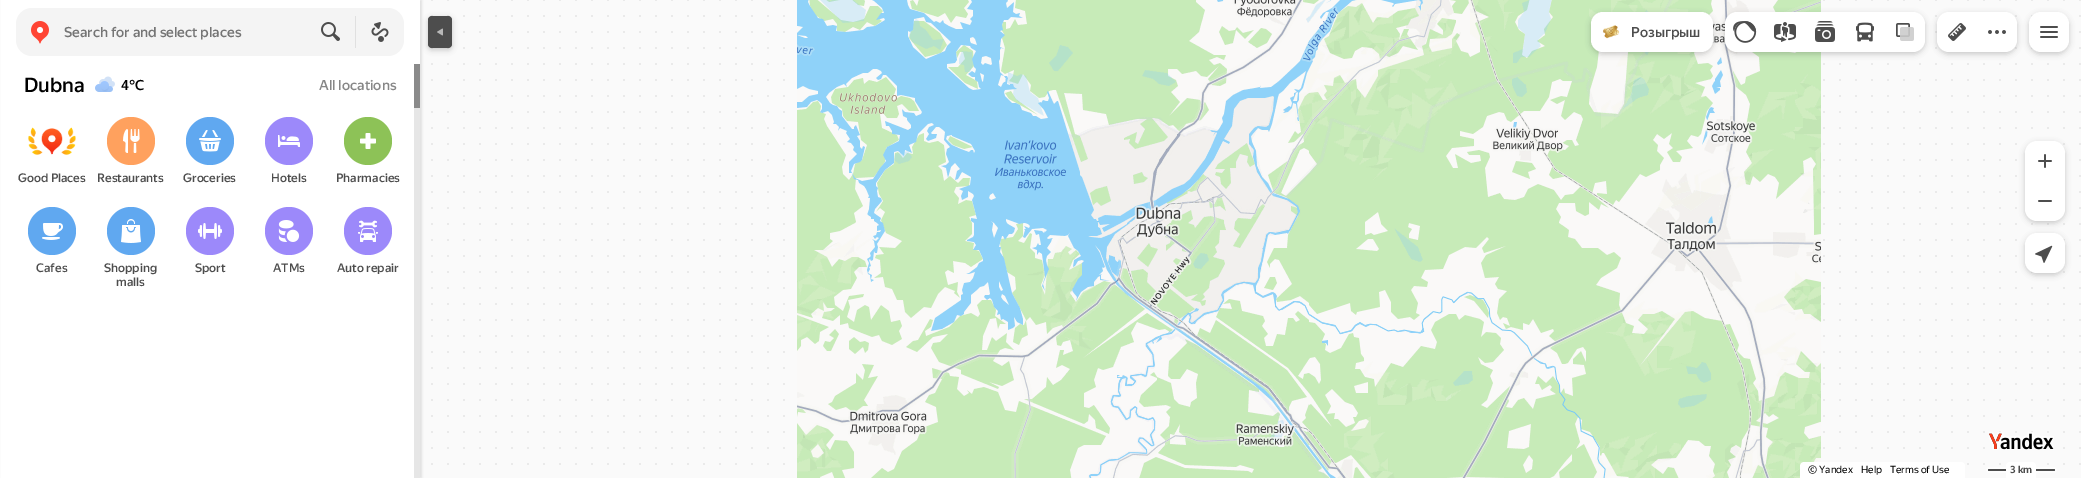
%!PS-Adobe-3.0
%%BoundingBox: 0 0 2081 478
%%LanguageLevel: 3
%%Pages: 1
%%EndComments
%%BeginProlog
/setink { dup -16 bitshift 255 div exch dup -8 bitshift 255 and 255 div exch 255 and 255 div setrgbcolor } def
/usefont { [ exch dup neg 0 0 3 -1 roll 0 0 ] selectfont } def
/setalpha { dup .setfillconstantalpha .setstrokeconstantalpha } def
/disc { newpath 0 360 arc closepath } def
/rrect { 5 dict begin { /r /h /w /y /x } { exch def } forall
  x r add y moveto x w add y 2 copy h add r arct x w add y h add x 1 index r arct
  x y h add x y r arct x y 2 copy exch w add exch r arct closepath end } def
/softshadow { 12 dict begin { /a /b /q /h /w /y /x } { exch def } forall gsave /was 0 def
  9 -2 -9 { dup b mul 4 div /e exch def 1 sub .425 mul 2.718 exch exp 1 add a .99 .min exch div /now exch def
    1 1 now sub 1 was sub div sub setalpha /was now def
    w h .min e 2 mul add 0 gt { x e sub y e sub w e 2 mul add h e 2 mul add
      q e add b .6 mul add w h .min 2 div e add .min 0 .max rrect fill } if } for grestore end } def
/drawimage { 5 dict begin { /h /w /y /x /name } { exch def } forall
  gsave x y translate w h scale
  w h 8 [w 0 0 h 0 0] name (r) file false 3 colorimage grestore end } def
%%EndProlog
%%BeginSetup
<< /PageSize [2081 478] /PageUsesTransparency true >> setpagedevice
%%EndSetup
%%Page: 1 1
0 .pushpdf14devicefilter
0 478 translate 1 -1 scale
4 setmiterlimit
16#FFFFFF setink
0 0 2081 478 rectfill
(img1.raw) 420 0 1661 478 drawimage
(img2.raw) 797 0 256 223 drawimage
(img3.raw) 1053 0 256 223 drawimage
(img4.raw) 1309 0 256 223 drawimage
(img5.raw) 1565 0 256 223 drawimage
(img6.raw) 797 223 256 255 drawimage
(img7.raw) 1053 223 256 255 drawimage
(img8.raw) 1309 223 256 255 drawimage
(img9.raw) 1565 223 256 255 drawimage
16#000000 setink
2 0 420 478 0 1 0.1 softshadow
428 18 24 32 4 3 0.2 softshadow
16#FFFFFF setink
1 0 419 478 rectfill
16#F4F4F4 setink
16 8 388 48 16 rrect fill
(img10.raw) 31 21 18 23 drawimage
/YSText-Medium 14 usefont
16#757575 setink
64 37 moveto (Search for and select places) show
(img11.raw) 321 22 19 19 drawimage
16#E0E0E0 setink
355 16 1 32 rectfill
(img12.raw) 371 22 18 20 drawimage
16#000000 setink
1591 14 122 40 12 3 0.2 softshadow
16#FFFFFF setink
1591 12 122 40 12 rrect fill
(img13.raw) 1603 25 17 14 drawimage
16#4D4D4D setink
1631 37 moveto (Розыгрыш) show
16#000000 setink
1725 14 200 40 12 3 0.2 softshadow
16#FFFFFF setink
1737 12 moveto 1765 12 lineto 1765 52 lineto 1737 52 lineto 1730.5 52 1725 46.5 1725 40 curveto 1725 24 lineto 1725 17.5 1730.5 12 1737 12 curveto closepath fill
(img14.raw) 1733 21 24 22 drawimage
1765 12 120 40 rectfill
(img15.raw) 1774 22 22 20 drawimage
1885 12 moveto 1913 12 lineto 1919.5 12 1925 17.5 1925 24 curveto 1925 40 lineto 1925 46.5 1919.5 52 1913 52 curveto 1885 52 lineto closepath fill
(img16.raw) 1896 23 18 18 drawimage
(img17.raw) 1815 21 20 21 drawimage
(img18.raw) 1856 22 18 20 drawimage
16#000000 setink
1937 14 80 40 12 3 0.2 softshadow
16#FFFFFF setink
1949 12 moveto 1977 12 lineto 1977 52 lineto 1949 52 lineto 1942.5 52 1937 46.5 1937 40 curveto 1937 24 lineto 1937 17.5 1942.5 12 1949 12 curveto closepath fill
(img19.raw) 1948 23 18 18 drawimage
1977 12 moveto 2005 12 lineto 2011.5 12 2017 17.5 2017 24 curveto 2017 40 lineto 2017 46.5 2011.5 52 2005 52 curveto 1977 52 lineto closepath fill
(img20.raw) 1988 30 18 4 drawimage
16#000000 setink
2029 14 40 40 12 3 0.2 softshadow
16#FFFFFF setink
2029 12 40 40 12 rrect fill
(img21.raw) 2040 26 18 12 drawimage
16#000000 setink
2025 143 40 80 12 3 0.2 softshadow
16#FFFFFF setink
2037 141 moveto 2053 141 lineto 2059.5 141 2065 146.5 2065 153 curveto 2065 181 lineto 2025 181 lineto 2025 153 lineto 2025 146.5 2030.5 141 2037 141 curveto closepath fill
(img22.raw) 2038 154 14 14 drawimage
2025 181 moveto 2065 181 lineto 2065 209 lineto 2065 215.5 2059.5 221 2053 221 curveto 2037 221 lineto 2030.5 221 2025 215.5 2025 209 curveto closepath fill
(img23.raw) 2038 200 14 2 drawimage
16#000000 setink
2025 235 40 40 12 3 0.2 softshadow
16#FFFFFF setink
2025 233 40 40 12 rrect fill
(img24.raw) 2035 245 18 18 drawimage
16#4D4D4D setink
428 16 24 32 4 rrect fill
(img25.raw) 437 28 6 8 drawimage
/YSText-Medium 20 usefont
16#000000 setink
24 92 moveto (Dubna) show
(img26.raw) 95 76 20 16 drawimage
/YSText-Medium 14 usefont
121 90 moveto (4°C) show
16#878787 setink
319 90 moveto (All locations) show
(img27.raw) 28 127 48 28 drawimage
/YSText-Medium 12 usefont
16#4D4D4D setink
18 182 moveto (Good Places) show
16#FFA15E setink
131 141 24 disc fill
(img28.raw) 123 129 17 24 drawimage
16#4D4D4D setink
97 182 moveto (Restaurants) show
16#60A8F0 setink
210 141 24 disc fill
(img29.raw) 199 130 22 22 drawimage
16#4D4D4D setink
183 182 moveto (Groceries) show
16#9C89FA setink
289 141 24 disc fill
(img30.raw) 278 135 22 12 drawimage
16#4D4D4D setink
271 182 moveto (Hotels) show
16#8DC257 setink
368 141 24 disc fill
(img31.raw) 360 133 16 16 drawimage
16#4D4D4D setink
336 182 moveto (Pharmacies) show
16#60A8F0 setink
52 231 24 disc fill
(img32.raw) 42 223 21 17 drawimage
16#4D4D4D setink
36 272 moveto (Cafes) show
16#60A8F0 setink
131 231 24 disc fill
(img33.raw) 121 219 20 24 drawimage
16#4D4D4D setink
104 272 moveto (Shopping) show
116 286 moveto (malls) show
16#9C89FA setink
210 231 24 disc fill
(img34.raw) 198 223 24 16 drawimage
16#4D4D4D setink
195 272 moveto (Sport) show
16#9C89FA setink
289 231 24 disc fill
(img35.raw) 278 220 22 22 drawimage
16#4D4D4D setink
273 272 moveto (ATMs) show
16#9C89FA setink
368 231 24 disc fill
(img36.raw) 358 220 20 22 drawimage
16#4D4D4D setink
337 272 moveto (Auto repair) show
16#8A8A8A setink
414 64 6 44 rectfill
16#E6E6E6 setink
414 108 6 370 rectfill
(img37.raw) 1989 431 65 19 drawimage
16#FFFFFF setink
1804 462 moveto 1961 462 lineto 1963 462 1965 464 1965 466 curveto 1965 478 lineto 1800 478 lineto 1800 466 lineto 1800 464 1802 462 1804 462 curveto closepath fill
/YSText-Regular 10 usefont
16#000000 setink
[
    [(© Yandex) 1808 473]
    [(Help) 1861 473]
    [(Terms of Use) 1890 473]
] { aload pop moveto show } forall
16#FDFDFD setink
1986 467 71 6 3 rrect fill
16#4D4D4D setink
1988 469 67 2 1 rrect fill
16#FFFFFF setink
2010 462 moveto 2032 462 lineto 2034 462 2036 464 2036 466 curveto 2036 478 lineto 2006 478 lineto 2006 466 lineto 2006 464 2008 462 2010 462 curveto closepath fill
/YSText-Bold 10 usefont
16#4D4D4D setink
2010 473 moveto (3 km) show
.poppdf14devicefilter showpage
%%EOF
